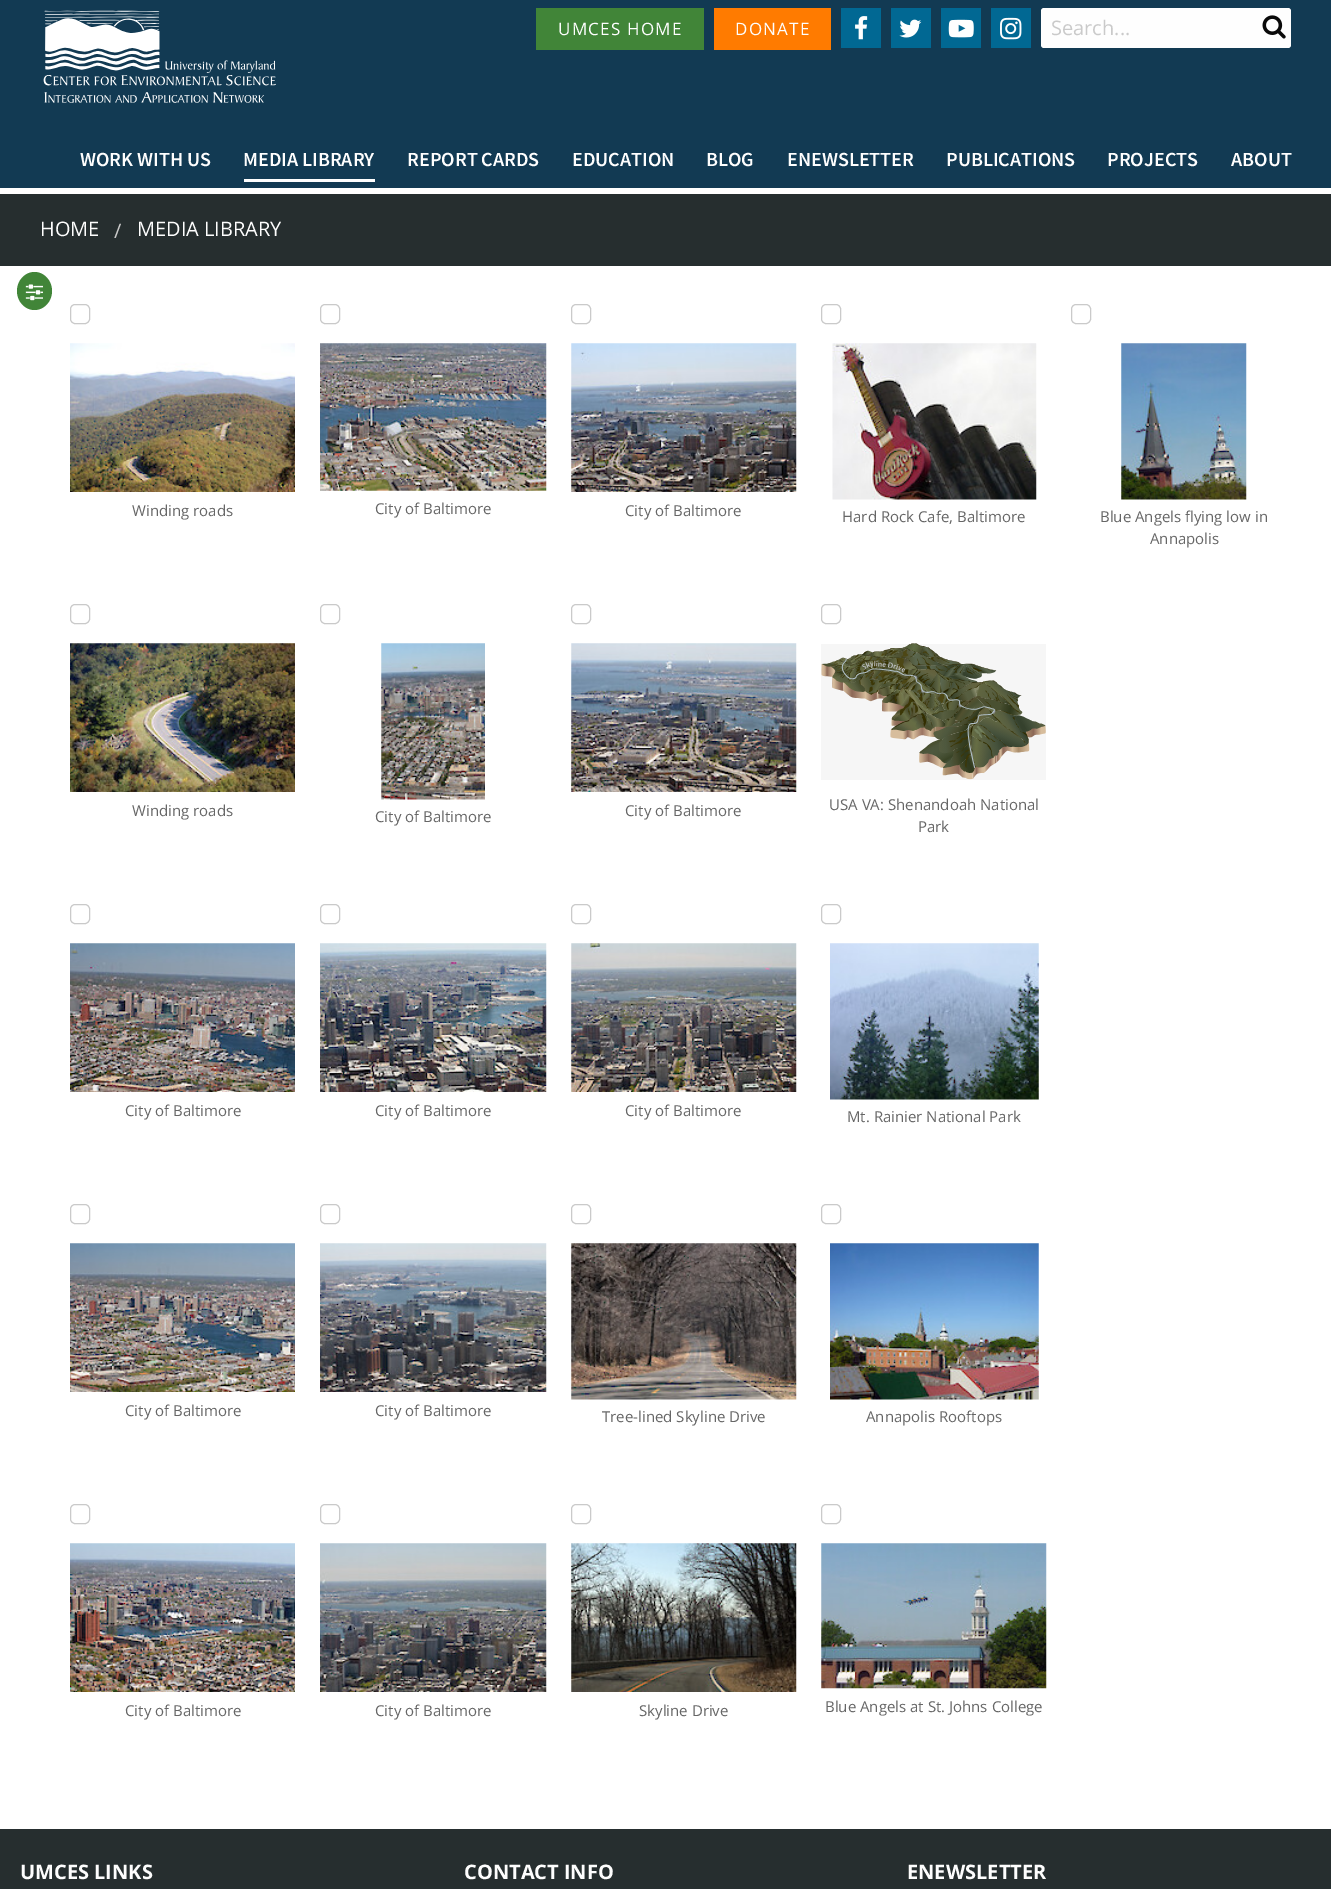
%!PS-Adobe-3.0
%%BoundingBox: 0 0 1331 1889
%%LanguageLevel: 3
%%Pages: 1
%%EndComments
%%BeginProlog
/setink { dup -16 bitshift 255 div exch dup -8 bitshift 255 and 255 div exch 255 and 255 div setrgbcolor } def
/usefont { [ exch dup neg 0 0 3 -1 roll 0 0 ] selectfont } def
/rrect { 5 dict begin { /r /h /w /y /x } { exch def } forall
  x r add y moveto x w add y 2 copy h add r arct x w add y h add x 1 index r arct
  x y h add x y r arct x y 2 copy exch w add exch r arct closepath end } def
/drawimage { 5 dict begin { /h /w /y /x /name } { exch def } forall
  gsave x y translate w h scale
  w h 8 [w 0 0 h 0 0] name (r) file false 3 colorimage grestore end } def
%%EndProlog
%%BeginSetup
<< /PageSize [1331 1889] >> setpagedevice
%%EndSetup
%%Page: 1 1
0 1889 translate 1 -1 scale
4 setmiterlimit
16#FFFFFF setink
0 0 1331 1889 rectfill
16#123A53 setink
0 0 1331 188 rectfill
(img1.raw) 43 10 233 93 drawimage
16#418538 setink
536 8 168 42 rectfill
/OpenSans-Regular 17 usefont
16#FEFEFE setink
558 35 moveto 1.25 0 (UMCES HOME) ashow
16#FF7B00 setink
714 8 117 42 rectfill
16#FEFEFE setink
735 35 moveto 1.25 0 (DONATE) ashow
16#016893 setink
841 8 40 40 rectfill
(img2.raw) 855 16 13 24 drawimage
891 8 40 40 rectfill
(img3.raw) 899 19 23 19 drawimage
941 8 40 40 rectfill
(img4.raw) 948 19 26 19 drawimage
991 8 40 40 rectfill
(img5.raw) 1000 17 22 23 drawimage
16#FEFEFE setink
1041 8 250 40 3 rrect fill
/OpenSans-Regular 20 usefont
16#CACACA setink
1051 35 moveto (Search...) show
(img6.raw) 1262 15 24 24 drawimage
/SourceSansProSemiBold-SemiBold 20 usefont
16#FEFEFE setink
80 166 moveto (WORK WITH US) show
244 179 131 3 rectfill
[
    [(MEDIA LIBRARY) 243 166]
    [(REPORT CARDS) 407 166]
    [(EDUCATION) 572 166]
    [(BLOG) 706 166]
    [(ENEWSLETTER) 787 166]
    [(PUBLICATIONS) 946 166]
    [(PROJECTS) 1107 166]
    [(ABOUT) 1231 166]
] { aload pop moveto show } forall
16#262E2F setink
0 194 1331 72 rectfill
/OpenSans-Regular 20 usefont
16#FEFEFE setink
40 236 moveto (HOME) show
16#CACACA setink
114 238 moveto (/) show
16#FEFEFE setink
137 236 moveto (MEDIA LIBRARY) show
16#418538 setink
34.5 272 moveto 44 272 52 280.5 52 291 curveto 52 301.5 44 310 34.5 310 curveto 25 310 17 301.5 17 291 curveto 17 280.5 25 272 34.5 272 curveto closepath fill
(img7.raw) 25 284 18 17 drawimage
16#CACACA setink
70.5 304.5 19 19 4.5 rrect stroke
(img8.raw) 70 343 225 149 drawimage
/OpenSans-Regular 15 usefont
16#666666 setink
132 516 moveto (Winding roads) show
16#CACACA setink
320.5 304.5 19 19 4.5 rrect stroke
(img9.raw) 320 343 227 148 drawimage
16#666666 setink
375 514 moveto (City of Baltimore) show
16#CACACA setink
571.5 304.5 19 19 4.5 rrect stroke
(img10.raw) 571 343 226 149 drawimage
16#666666 setink
625 516 moveto (City of Baltimore) show
16#CACACA setink
821.5 304.5 19 19 4.5 rrect stroke
(img11.raw) 832 343 205 157 drawimage
16#666666 setink
842 522 moveto (Hard Rock Cafe, Baltimore) show
16#CACACA setink
1071.5 304.5 19 19 4.5 rrect stroke
(img12.raw) 1121 343 126 157 drawimage
16#666666 setink
1100 522 moveto (Blue Angels flying low in) show
1150 544 moveto (Annapolis) show
16#CACACA setink
70.5 604.5 19 19 4.5 rrect stroke
(img13.raw) 70 643 225 149 drawimage
16#666666 setink
132 816 moveto (Winding roads) show
16#CACACA setink
320.5 604.5 19 19 4.5 rrect stroke
(img14.raw) 381 643 104 157 drawimage
16#666666 setink
375 822 moveto (City of Baltimore) show
16#CACACA setink
571.5 604.5 19 19 4.5 rrect stroke
(img15.raw) 571 643 226 149 drawimage
16#666666 setink
625 816 moveto (City of Baltimore) show
16#CACACA setink
821.5 604.5 19 19 4.5 rrect stroke
16#F6F6F6 setink
821 644 225 136 rectfill
(img16.raw) 821 643 225 137 drawimage
16#666666 setink
829 810 moveto (USA VA: Shenandoah National) show
918 832 moveto (Park) show
16#CACACA setink
70.5 904.5 19 19 4.5 rrect stroke
(img17.raw) 70 943 225 149 drawimage
16#666666 setink
125 1116 moveto (City of Baltimore) show
16#CACACA setink
320.5 904.5 19 19 4.5 rrect stroke
(img18.raw) 320 943 227 149 drawimage
16#666666 setink
375 1116 moveto (City of Baltimore) show
16#CACACA setink
571.5 904.5 19 19 4.5 rrect stroke
(img19.raw) 571 943 226 149 drawimage
16#666666 setink
625 1116 moveto (City of Baltimore) show
16#CACACA setink
821.5 904.5 19 19 4.5 rrect stroke
(img20.raw) 830 943 209 157 drawimage
16#666666 setink
847 1122 moveto (Mt. Rainier National Park) show
16#CACACA setink
70.5 1204.5 19 19 4.5 rrect stroke
(img21.raw) 70 1243 225 149 drawimage
16#666666 setink
125 1416 moveto (City of Baltimore) show
16#CACACA setink
320.5 1204.5 19 19 4.5 rrect stroke
(img22.raw) 320 1243 227 149 drawimage
16#666666 setink
375 1416 moveto (City of Baltimore) show
16#CACACA setink
571.5 1204.5 19 19 4.5 rrect stroke
(img23.raw) 571 1243 226 157 drawimage
16#666666 setink
602 1422 moveto (Tree-lined Skyline Drive) show
16#CACACA setink
821.5 1204.5 19 19 4.5 rrect stroke
(img24.raw) 830 1243 209 157 drawimage
16#666666 setink
866 1422 moveto (Annapolis Rooftops) show
16#CACACA setink
70.5 1504.5 19 19 4.5 rrect stroke
(img25.raw) 70 1543 225 149 drawimage
16#666666 setink
125 1716 moveto (City of Baltimore) show
16#CACACA setink
320.5 1504.5 19 19 4.5 rrect stroke
(img26.raw) 320 1543 227 149 drawimage
16#666666 setink
375 1716 moveto (City of Baltimore) show
16#CACACA setink
571.5 1504.5 19 19 4.5 rrect stroke
(img27.raw) 571 1543 226 149 drawimage
16#666666 setink
639 1716 moveto (Skyline Drive) show
16#CACACA setink
821.5 1504.5 19 19 4.5 rrect stroke
(img28.raw) 821 1543 226 146 drawimage
16#666666 setink
825 1712 moveto (Blue Angels at St. Johns College) show
16#262E2F setink
0 1829 1331 60 rectfill
/OpenSans-Bold 20 usefont
16#FEFEFE setink
[
    [(UMCES LINKS) 20 1879]
    [(CONTACT INFO) 464 1879]
    [(ENEWSLETTER) 907 1879]
] { aload pop moveto show } forall
showpage
%%EOF
